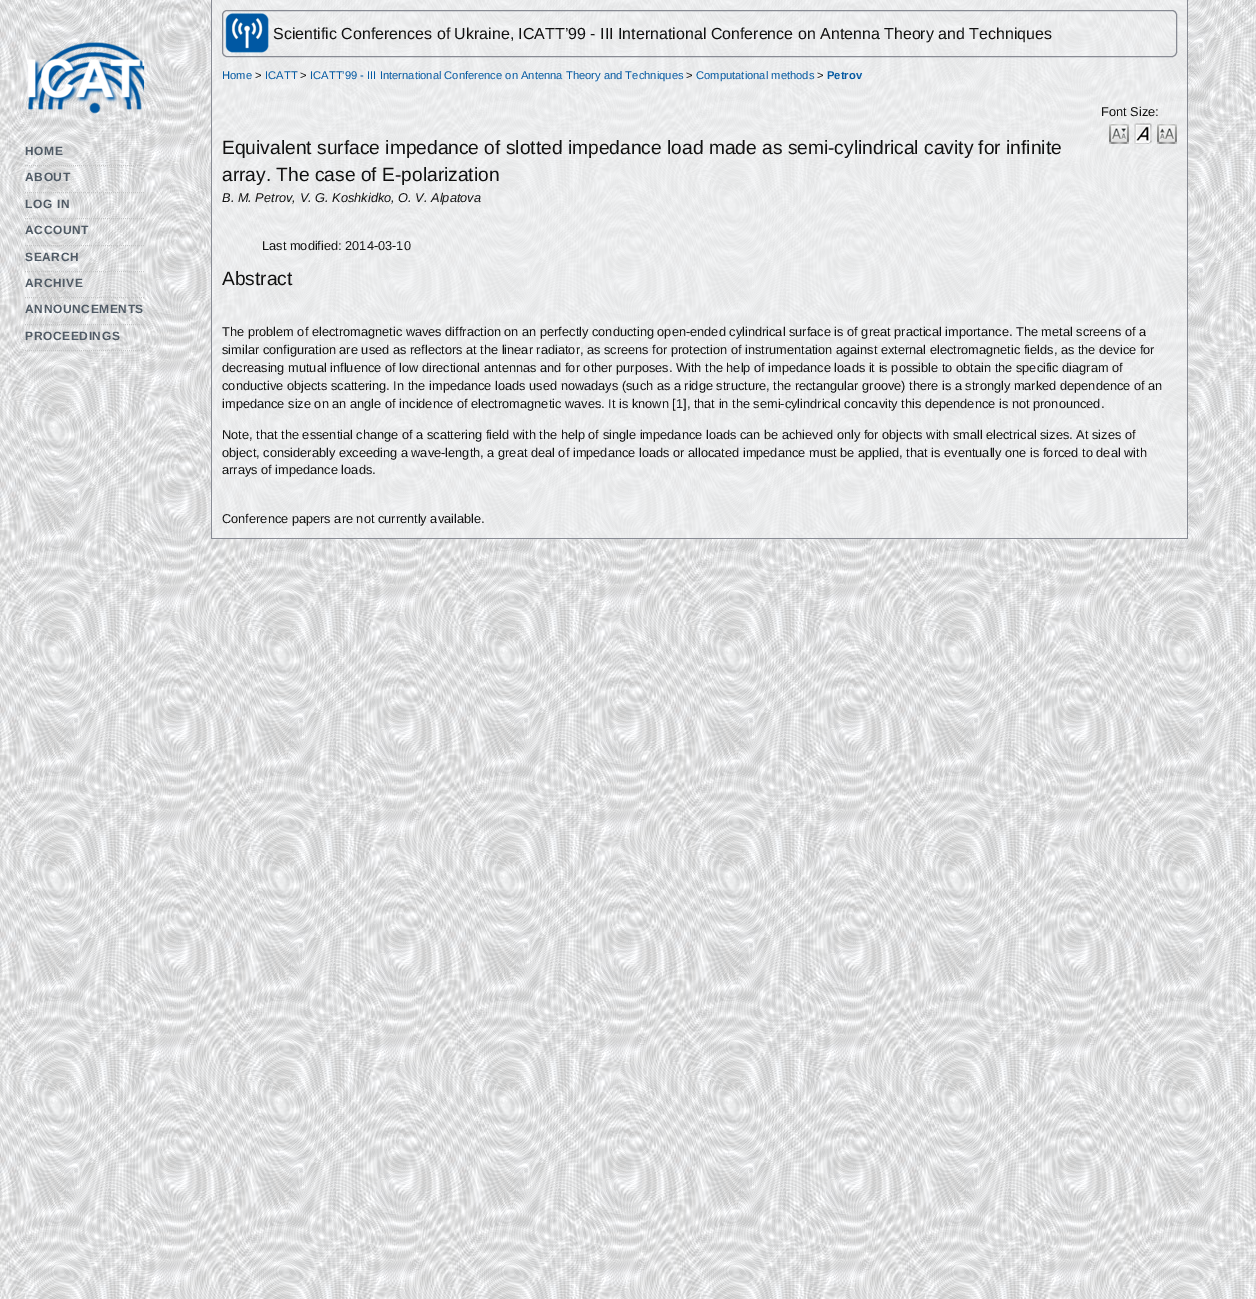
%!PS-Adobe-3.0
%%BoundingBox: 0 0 1256 1299
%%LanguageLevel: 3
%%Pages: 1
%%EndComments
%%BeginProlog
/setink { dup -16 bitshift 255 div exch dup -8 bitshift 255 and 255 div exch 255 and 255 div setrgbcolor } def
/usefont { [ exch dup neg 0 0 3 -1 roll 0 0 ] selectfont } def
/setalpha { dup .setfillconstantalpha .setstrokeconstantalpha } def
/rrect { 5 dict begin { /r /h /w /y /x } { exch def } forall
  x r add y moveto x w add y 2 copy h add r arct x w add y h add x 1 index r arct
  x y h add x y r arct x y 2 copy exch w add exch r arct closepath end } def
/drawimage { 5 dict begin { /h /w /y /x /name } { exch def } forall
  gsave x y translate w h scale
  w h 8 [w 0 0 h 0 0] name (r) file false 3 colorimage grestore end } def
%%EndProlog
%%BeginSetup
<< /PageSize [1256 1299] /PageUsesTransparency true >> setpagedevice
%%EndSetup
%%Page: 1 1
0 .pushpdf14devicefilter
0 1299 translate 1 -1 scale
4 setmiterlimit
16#FFFFFF setink
0 0 1256 1299 rectfill
(img1.raw) 0 0 1256 1299 drawimage
0.7 setalpha
[
    [212 0 975 538 16#F0F1F2]
] { aload pop setink rectfill } forall
1 setalpha
[
    [1187 0 1 539 16#878A93]
    [211 538 977 1 16#878A93]
    [211 0 1 539 16#878A93]
] { aload pop setink rectfill } forall
(img2.raw) 225 13 44 40 drawimage
222.5 10.5 954 46 4.5 rrect stroke
/LiberationSans-Regular 16 usefont
16#111111 setink
273 39 moveto (Scientific Conferences of Ukraine, ICATT’99 - III International Conference on Antenna Theory and Techniques) show
/LiberationSans-Regular 11.2 usefont
16#0359A2 setink
222 79 moveto (Home) show
16#111111 setink
255 79 moveto (>) show
16#0359A2 setink
265 79 moveto (ICATT) show
16#111111 setink
300 79 moveto (>) show
16#0359A2 setink
310 79 moveto (ICATT’99 - III International Conference on Antenna Theory and Techniques) show
16#111111 setink
686 79 moveto (>) show
16#0359A2 setink
696 79 moveto (Computational methods) show
16#111111 setink
817 79 moveto (>) show
/LiberationSans-Bold 11.2 usefont
16#0359A2 setink
827 79 moveto (Petrov) show
(img3.raw) 27 42 117 72 drawimage
16#C3C4C4 setink
[1 1] 0 setdash
25 165.5 moveto 144 165.5 lineto stroke
/LiberationSans-Bold 12 usefont
16#4F5A65 setink
25 155 moveto 0.6 0 (HOME) ashow
16#C3C4C4 setink
25 192.5 moveto 144 192.5 lineto stroke
16#4F5A65 setink
25 181 moveto 0.6 0 (ABOUT) ashow
16#C3C4C4 setink
25 218.5 moveto 144 218.5 lineto stroke
16#4F5A65 setink
25 208 moveto 0.6 0 (LOG IN) ashow
16#C3C4C4 setink
25 245.5 moveto 144 245.5 lineto stroke
16#4F5A65 setink
25 234 moveto 0.6 0 (ACCOUNT) ashow
16#C3C4C4 setink
25 271.5 moveto 144 271.5 lineto stroke
16#4F5A65 setink
25 261 moveto 0.6 0 (SEARCH) ashow
16#C3C4C4 setink
25 297.5 moveto 144 297.5 lineto stroke
16#4F5A65 setink
25 287 moveto 0.6 0 (ARCHIVE) ashow
16#C3C4C4 setink
25 324.5 moveto 144 324.5 lineto stroke
16#4F5A65 setink
25 313 moveto 0.6 0 (ANNOUNCEMENTS) ashow
16#C3C4C4 setink
25 350.5 moveto 144 350.5 lineto stroke
16#4F5A65 setink
25 340 moveto 0.6 0 (PROCEEDINGS) ashow
/LiberationSans-Regular 12.8 usefont
16#111111 setink
1101 116 moveto (Font Size:) show
(img4.raw) 1109 124 20 20 drawimage
(img5.raw) 1134 123 18 21 drawimage
(img6.raw) 1157 124 20 20 drawimage
/LiberationSans-Regular 19.2 usefont
222 154 moveto (Equivalent surface impedance of slotted impedance load made as semi-cylindrical cavity for infinite) show
222 181 moveto (array. The case of E-polarization) show
/LiberationSans-Italic 12.8 usefont
222 202 moveto (B. M. Petrov, V. G. Koshkidko, O. V. Alpatova) show
/LiberationSans-Regular 12.8 usefont
262 250 moveto (Last modified: 2014-03-10) show
/LiberationSans-Regular 19.2 usefont
222 285 moveto (Abstract) show
/LiberationSans-Regular 12.8 usefont
[
    [(The problem of electromagnetic waves diffraction on an perfectly conducting open-ended cylindrical surface is of great practical importance. The metal screens of a) 222 336]
    [(similar configuration are used as reflectors at the linear radiator, as screens for protection of instrumentation against external electromagnetic fields, as the device for) 222 354]
    [(decreasing mutual influence of low directional antennas and for other purposes. With the help of impedance loads it is possible to obtain the specific diagram of) 222 372]
    [(conductive objects scattering. In the impedance loads used nowadays \(such as a ridge structure, the rectangular groove\) there is a strongly marked dependence of an) 222 390]
    [(impedance size on an angle of incidence of electromagnetic waves. It is known [1], that in the semi-cylindrical concavity this dependence is not pronounced.) 222 408]
    [(Note, that the essential change of a scattering field with the help of single impedance loads can be achieved only for objects with small electrical sizes. At sizes of) 222 439]
    [(object, considerably exceeding a wave-length, a great deal of impedance loads or allocated impedance must be applied, that is eventually one is forced to deal with) 222 457]
    [(arrays of impedance loads.) 222 474]
    [(Conference papers are not currently available.) 222 523]
] { aload pop moveto show } forall
.poppdf14devicefilter showpage
%%EOF
